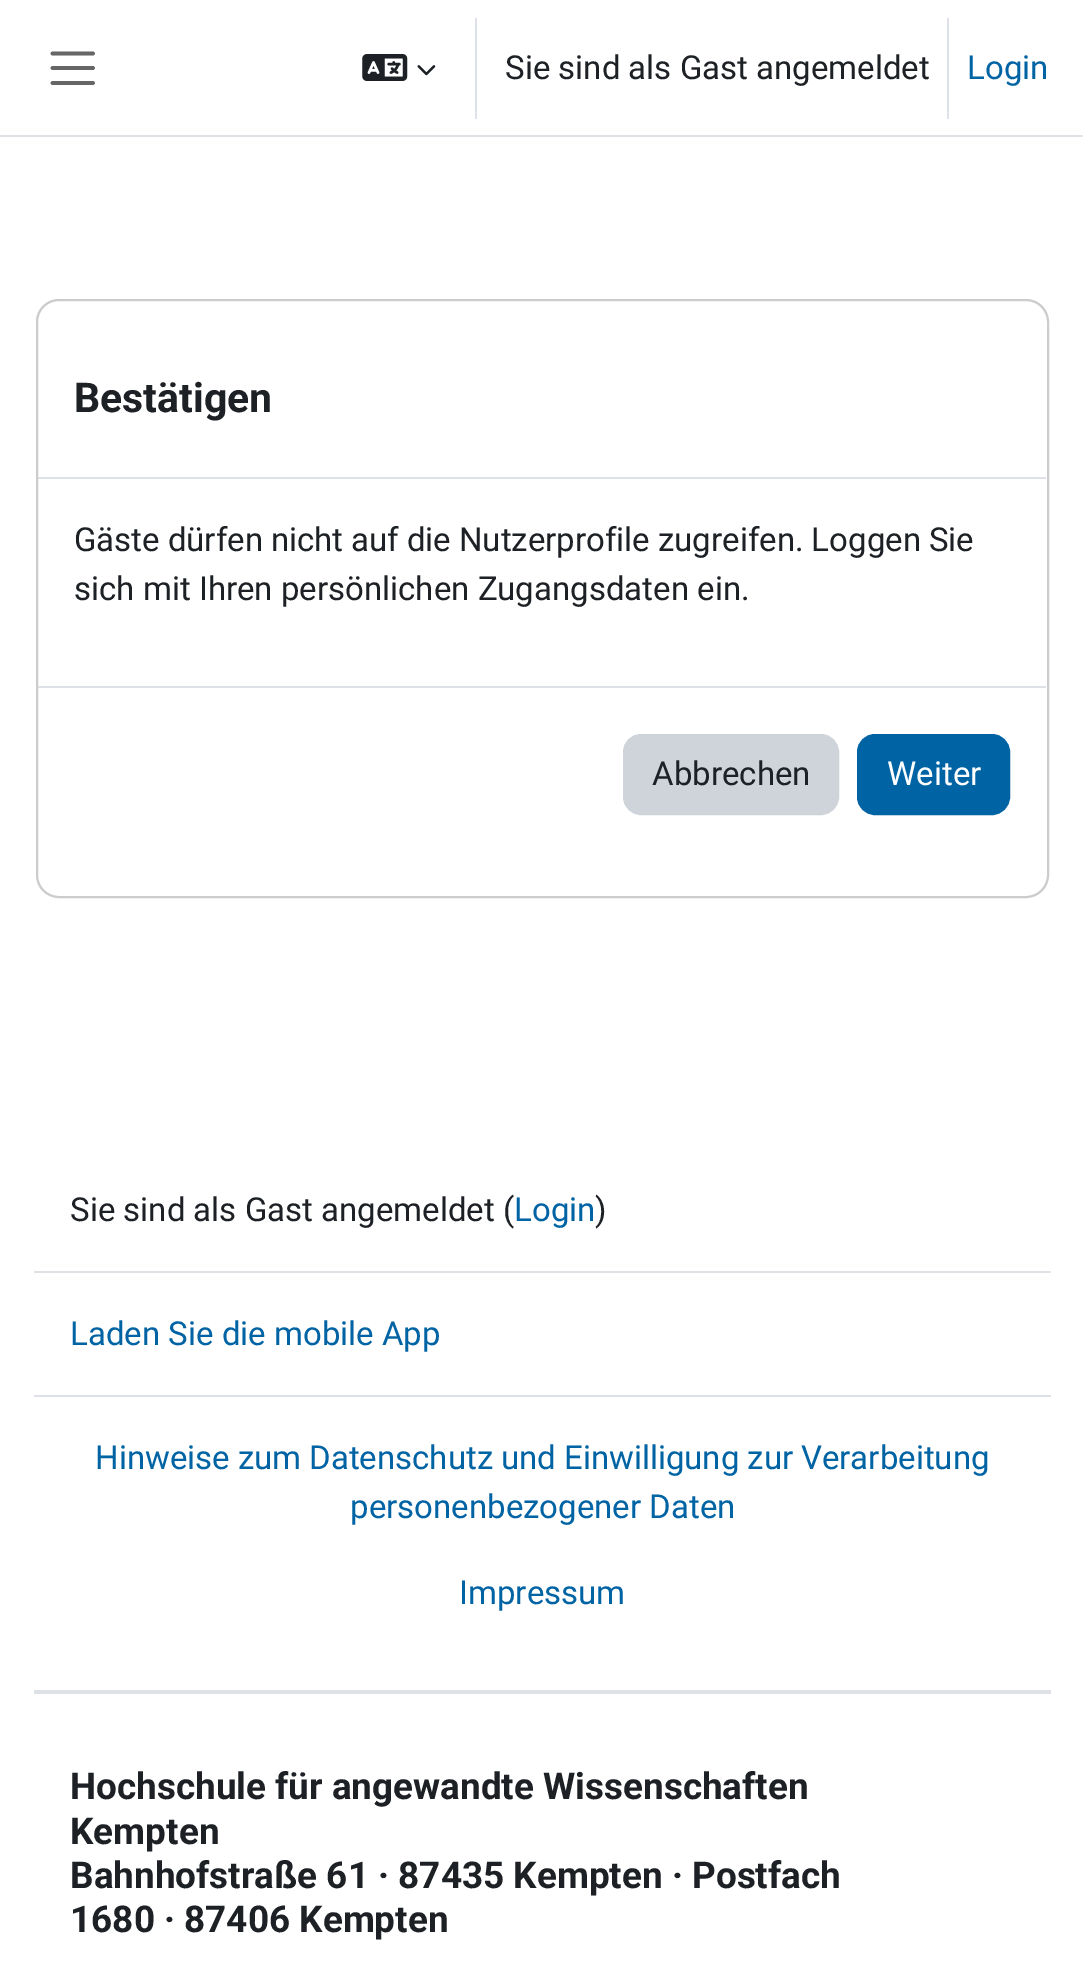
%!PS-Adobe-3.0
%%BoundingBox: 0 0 1083 1966
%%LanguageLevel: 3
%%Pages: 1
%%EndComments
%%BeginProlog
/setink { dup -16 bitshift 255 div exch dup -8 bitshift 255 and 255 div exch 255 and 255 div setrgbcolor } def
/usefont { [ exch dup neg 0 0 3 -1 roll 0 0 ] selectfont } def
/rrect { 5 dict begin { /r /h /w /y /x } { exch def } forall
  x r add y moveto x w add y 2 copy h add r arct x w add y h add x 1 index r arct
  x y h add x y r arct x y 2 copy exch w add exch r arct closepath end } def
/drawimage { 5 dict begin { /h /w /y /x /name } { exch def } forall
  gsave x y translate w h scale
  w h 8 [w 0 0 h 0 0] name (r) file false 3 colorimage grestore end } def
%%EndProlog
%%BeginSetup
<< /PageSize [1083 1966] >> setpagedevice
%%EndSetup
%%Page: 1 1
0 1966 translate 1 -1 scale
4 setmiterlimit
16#FFFFFF setink
0 0 1083 1966 rectfill
16#DEE2E6 setink
0 135 1083 2 rectfill
16#666666 setink
3.7 setlinewidth
1 setlinecap
52.5 53.5 moveto 93 53.5 lineto 52.5 68 moveto 93 68 lineto 52.5 83 moveto 93 83 lineto stroke
(img1.raw) 362 54 46 27 drawimage
(img2.raw) 417 65 19 11 drawimage
16#DEE2E6 setink
475 18 2 101 rectfill
/Roboto-Regular 33 usefont
16#1D2125 setink
505 79 moveto (Sie sind als Gast angemeldet) show
16#DEE2E6 setink
947 18 2 101 rectfill
16#0063A3 setink
967 79 moveto (Login) show
16#CCCCCC setink
2 setlinewidth
0 setlinecap
37 300 1011 597 22 rrect stroke
16#DEE2E6 setink
38 477 1008 2 rectfill
/Roboto-Bold 41 usefont
16#1D2125 setink
74 412 moveto (Bestätigen) show
/Roboto-Regular 33 usefont
74 551 moveto -0.25 0 32 (Gäste dürfen nicht auf die Nutzerprofile zugreifen. Loggen Sie) widthshow
74 600 moveto (sich mit Ihren persönlichen Zugangsdaten ein.) show
16#DEE2E6 setink
38 686 1008 2 rectfill
16#CED4DA setink
624 735 214 79 17 rrect gsave fill grestore
stroke
16#1D2125 setink
652 785 moveto (Abbrechen) show
16#0063A3 setink
858 735 151 79 17 rrect gsave fill grestore
stroke
16#FFFFFF setink
887 785 moveto (Weiter) show
16#DEE2E6 setink
34 1271 1017 2 rectfill
16#1D2125 setink
70 1221 moveto (Sie sind als Gast angemeldet \() show
16#0063A3 setink
514 1221 moveto (Login) show
16#1D2125 setink
595 1221 moveto (\)) show
16#DEE2E6 setink
34 1395 1017 2 rectfill
16#0063A3 setink
70 1345 moveto (Laden Sie die mobile App) show
16#DEE2E6 setink
34 1690 1017 4 rectfill
16#0063A3 setink
95 1469 moveto -0.25 0 32 (Hinweise zum Datenschutz und Einwilligung zur Verarbeitung) widthshow
350 1518 moveto (personenbezogener Daten) show
459 1604 moveto (Impressum) show
/Roboto-Bold 36.9 usefont
16#1D2125 setink
[
    [(Hochschule für angewandte Wissenschaften) 70 1799]
    [(Kempten) 70 1844]
    [(Bahnhofstraße 61 · 87435 Kempten · Postfach) 70 1888]
    [(1680 · 87406 Kempten) 70 1932]
] { aload pop moveto show } forall
showpage
%%EOF
